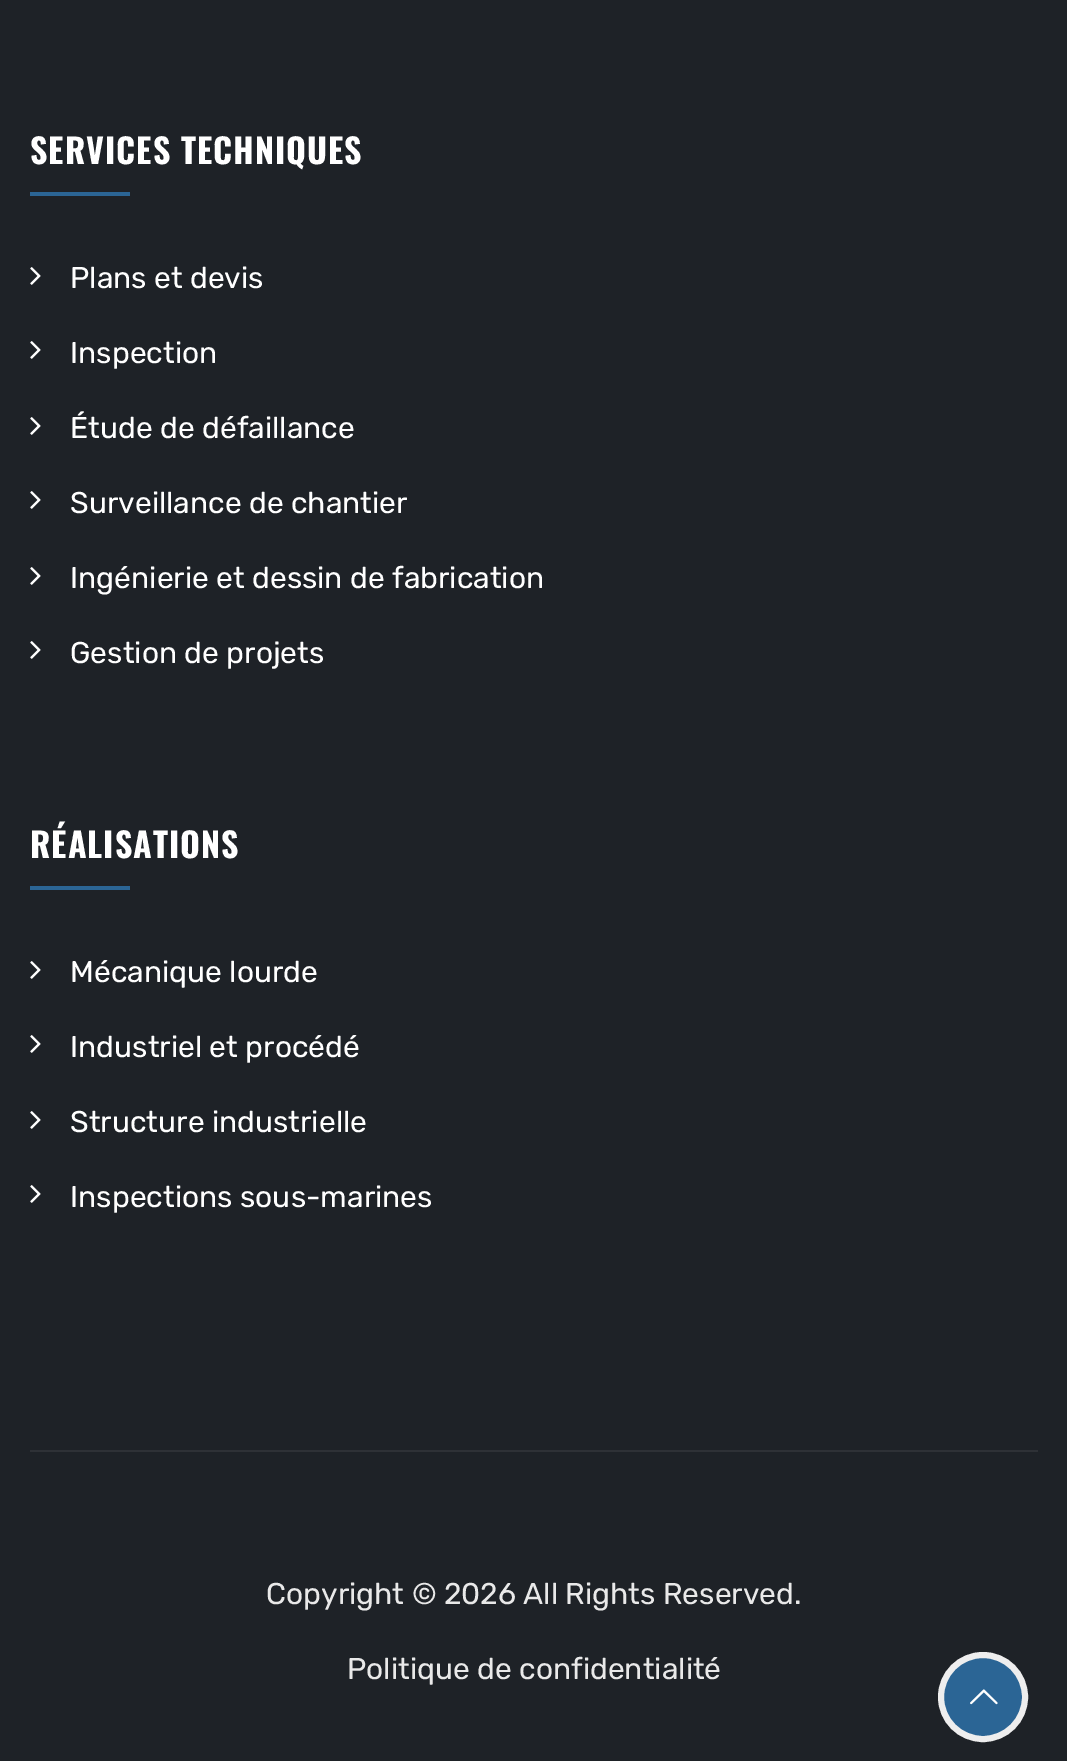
%!PS-Adobe-3.0
%%BoundingBox: 0 0 1067 1761
%%LanguageLevel: 3
%%Pages: 1
%%EndComments
%%BeginProlog
/setink { dup -16 bitshift 255 div exch dup -8 bitshift 255 and 255 div exch 255 and 255 div setrgbcolor } def
/usefont { [ exch dup neg 0 0 3 -1 roll 0 0 ] selectfont } def
/disc { newpath 0 360 arc closepath } def
/drawimage { 5 dict begin { /h /w /y /x /name } { exch def } forall
  gsave x y translate w h scale
  w h 8 [w 0 0 h 0 0] name (r) file false 3 colorimage grestore end } def
%%EndProlog
%%BeginSetup
<< /PageSize [1067 1761] >> setpagedevice
%%EndSetup
%%Page: 1 1
0 1761 translate 1 -1 scale
4 setmiterlimit
16#1E2227 setink
0 0 1067 1761 rectfill
/Oswald-Bold 34 usefont
16#FFFFFF setink
30 164 moveto 1 0 (SERVICES TECHNIQUES) ashow
16#2B6595 setink
30 192 100 4 rectfill
(img1.raw) 30 267 11 18 drawimage
/Rubik-Regular 30 usefont
16#FFFFFF setink
70 288 moveto (Plans et devis) show
(img1.raw) 30 341 11 18 drawimage
70 363 moveto (Inspection) show
(img1.raw) 30 417 11 18 drawimage
70 438 moveto (Étude de défaillance) show
(img1.raw) 30 491 11 18 drawimage
70 513 moveto (Surveillance de chantier) show
(img1.raw) 30 567 11 18 drawimage
70 588 moveto (Ingénierie et dessin de fabrication) show
(img1.raw) 30 641 11 18 drawimage
70 663 moveto (Gestion de projets) show
/Oswald-Bold 34 usefont
30 858 moveto 1 0 (RÉALISATIONS) ashow
16#2B6595 setink
30 886 100 4 rectfill
(img1.raw) 30 961 11 18 drawimage
/Rubik-Regular 30 usefont
16#FFFFFF setink
70 982 moveto (Mécanique lourde) show
(img1.raw) 30 1035 11 18 drawimage
70 1057 moveto (Industriel et procédé) show
(img1.raw) 30 1111 11 18 drawimage
70 1132 moveto (Structure industrielle) show
(img1.raw) 30 1185 11 18 drawimage
70 1207 moveto (Inspections sous-marines) show
16#2E3136 setink
30 1450 1008 2 rectfill
16#E9E9E9 setink
266 1604 moveto (Copyright © 2026 All Rights Reserved.) show
347 1679 moveto (Politique de confidentialité) show
16#2B6595 setink
983 1697 42 disc gsave fill grestore
16#EEEEEE setink
6 setlinewidth
stroke
(img2.raw) 970 1689 28 16 drawimage
showpage
%%EOF
